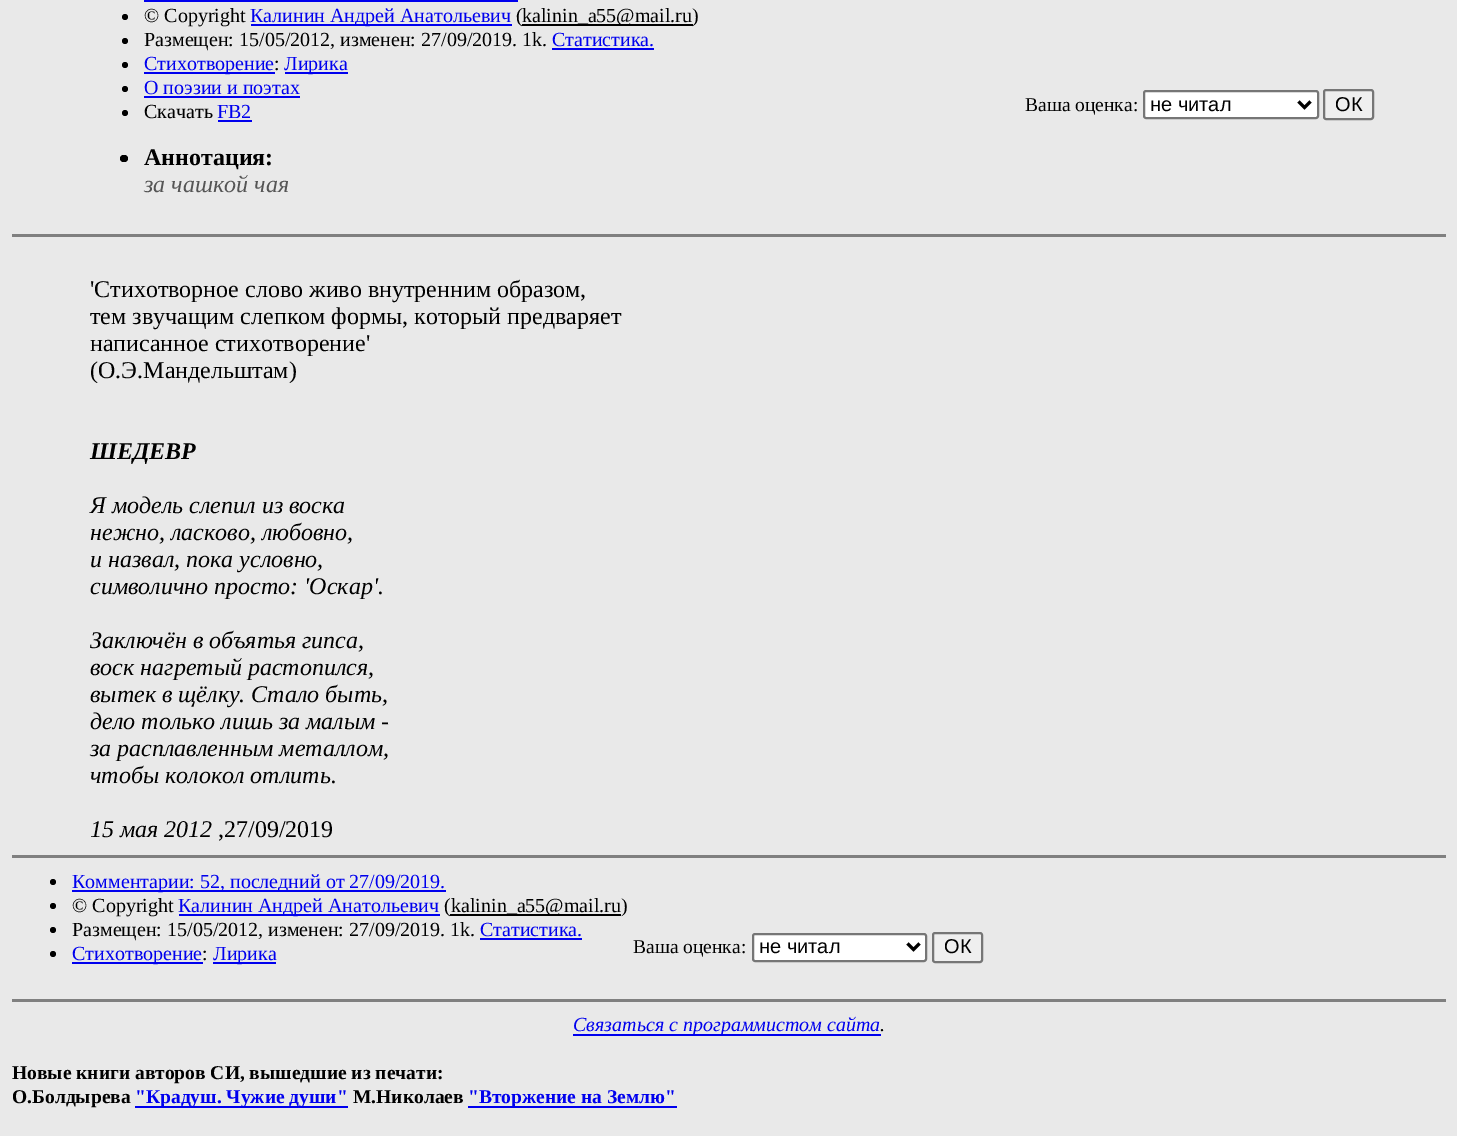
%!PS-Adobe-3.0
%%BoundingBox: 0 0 1457 1136
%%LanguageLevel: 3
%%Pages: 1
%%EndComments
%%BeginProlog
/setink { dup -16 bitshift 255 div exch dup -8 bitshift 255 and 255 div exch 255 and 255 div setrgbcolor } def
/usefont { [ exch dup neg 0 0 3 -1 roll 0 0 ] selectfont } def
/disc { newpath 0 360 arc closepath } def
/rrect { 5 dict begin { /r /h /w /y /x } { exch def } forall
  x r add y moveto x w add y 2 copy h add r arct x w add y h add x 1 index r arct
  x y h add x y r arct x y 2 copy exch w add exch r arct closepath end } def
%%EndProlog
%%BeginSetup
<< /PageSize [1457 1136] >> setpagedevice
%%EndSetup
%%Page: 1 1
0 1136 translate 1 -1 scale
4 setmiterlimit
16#E9E9E9 setink
0 0 1457 1136 rectfill
16#0000EE setink
144 0 374 2 rectfill
16#000000 setink
125 17 3 disc fill
/LiberationSerif-Regular 20 usefont
144 22 moveto (© Copyright) show
16#0000EE setink
251 24 261 2 rectfill
250 22 moveto (Калинин Андрей Анатольевич) show
16#000000 setink
516 22 moveto (\() show
522 24 171 2 rectfill
522 22 moveto (kalinin_a55@mail.ru\)) show
125 41 3 disc fill
144 46 moveto (Размещен: 15/05/2012, изменен: 27/09/2019. 1k.) show
16#0000EE setink
552 46 moveto (Статистика.) show
552 48 102 2 rectfill
16#000000 setink
125 65 3 disc fill
16#0000EE setink
144 72 131 2 rectfill
144 70 moveto (Стихотворение) show
16#000000 setink
274 70 moveto (:) show
16#0000EE setink
285 72 63 2 rectfill
284 70 moveto (Лирика) show
16#000000 setink
125 89 3 disc fill
16#0000EE setink
144 94 moveto (О поэзии и поэтах) show
144 96 156 2 rectfill
16#000000 setink
125 113 3 disc fill
144 118 moveto (Скачать) show
16#0000EE setink
217 118 moveto (FB2) show
218 120 34 2 rectfill
/LiberationSerif-Regular 19.5 usefont
16#000000 setink
1025 111 moveto (Ваша оценка:) show
16#FFFFFF setink
1144 91 174 27 2 rrect gsave fill grestore
16#767676 setink
2 setlinewidth
stroke
16#000000 setink
3 setlinewidth
1298.5 101.5 moveto 1304.5 107.5 lineto 1310.5 101.5 lineto stroke
/LiberationSans-Regular 20 usefont
1150 111 moveto (не читал) show
16#EFEFEF setink
1324 90 49 29 2 rrect gsave fill grestore
16#767676 setink
2 setlinewidth
stroke
16#000000 setink
1335 111 moveto (ОК) show
120 155 8 7 3.5 rrect fill
/LiberationSerif-Bold 24 usefont
144 165 moveto (Аннотация:) show
/LiberationSerif-Italic 24 usefont
16#555555 setink
144 192 moveto (за чашкой чая) show
16#808080 setink
12 234 1434 3 rectfill
/LiberationSerif-Regular 24 usefont
16#000000 setink
[
    [('Стихотворное слово живо внутренним образом,) 90 297]
    [(тем звучащим слепком формы, который предваряет) 90 324]
    [(написанное стихотворение') 90 351]
    [(\(О.Э.Мандельштам\)) 90 378]
] { aload pop moveto show } forall
/LiberationSerif-BoldItalic 24 usefont
90 459 moveto (ШЕДЕВР) show
/LiberationSerif-Italic 24 usefont
[
    [(Я модель слепил из воска) 90 513]
    [(нежно, ласково, любовно,) 90 540]
    [(и назвал, пока условно,) 90 567]
    [(символично просто: 'Оскар'.) 90 594]
    [(Заключён в объятья гипса,) 90 648]
    [(воск нагретый растопился,) 90 675]
    [(вытек в щёлку. Стало быть,) 90 702]
    [(дело только лишь за малым -) 90 729]
    [(за расплавленным металлом,) 90 756]
    [(чтобы колокол отлить.) 90 783]
    [(15 мая 2012) 90 837]
] { aload pop moveto show } forall
/LiberationSerif-Regular 24 usefont
218 837 moveto (,27/09/2019) show
16#808080 setink
12 855 1434 3 rectfill
16#000000 setink
53 882 3 disc fill
16#0000EE setink
72 890 374 2 rectfill
/LiberationSerif-Regular 20 usefont
72 888 moveto (Комментарии: 52, последний от 27/09/2019.) show
16#000000 setink
53 906 3 disc fill
72 912 moveto (© Copyright) show
16#0000EE setink
179 914 261 2 rectfill
178 912 moveto (Калинин Андрей Анатольевич) show
16#000000 setink
444 912 moveto (\() show
450 914 171 2 rectfill
451 912 moveto (kalinin_a55@mail.ru\)) show
53 930 3 disc fill
72 936 moveto (Размещен: 15/05/2012, изменен: 27/09/2019. 1k.) show
16#0000EE setink
480 936 moveto (Статистика.) show
480 938 102 2 rectfill
16#000000 setink
53 954 3 disc fill
16#0000EE setink
72 962 131 2 rectfill
72 960 moveto (Стихотворение) show
16#000000 setink
202 960 moveto (:) show
16#0000EE setink
213 962 63 2 rectfill
213 960 moveto (Лирика) show
/LiberationSerif-Regular 19.5 usefont
16#000000 setink
633 953 moveto (Ваша оценка:) show
16#FFFFFF setink
753 934 173 27 2 rrect gsave fill grestore
16#767676 setink
stroke
16#000000 setink
3 setlinewidth
907.5 943.5 moveto 913.5 949.5 lineto 919.5 943.5 lineto stroke
/LiberationSans-Regular 20 usefont
759 953 moveto (не читал) show
16#EFEFEF setink
933 933 49 29 2 rrect gsave fill grestore
16#767676 setink
2 setlinewidth
stroke
16#000000 setink
944 953 moveto (ОК) show
16#808080 setink
12 999 1434 3 rectfill
16#0000EE setink
573 1034 308 2 rectfill
/LiberationSerif-Italic 20 usefont
573 1031 moveto (Связаться с программистом сайта) show
16#000000 setink
880 1031 moveto (.) show
/LiberationSerif-Bold 19.5 usefont
12 1079 moveto (Новые книги авторов СИ, вышедшие из печати:) show
12 1103 moveto (О.Болдырева) show
16#0000EE setink
135 1106 213 2 rectfill
135 1103 moveto ("Крадуш. Чужие души") show
16#000000 setink
353 1103 moveto (М.Николаев) show
16#0000EE setink
468 1106 209 2 rectfill
468 1103 moveto ("Вторжение на Землю") show
showpage
%%EOF
